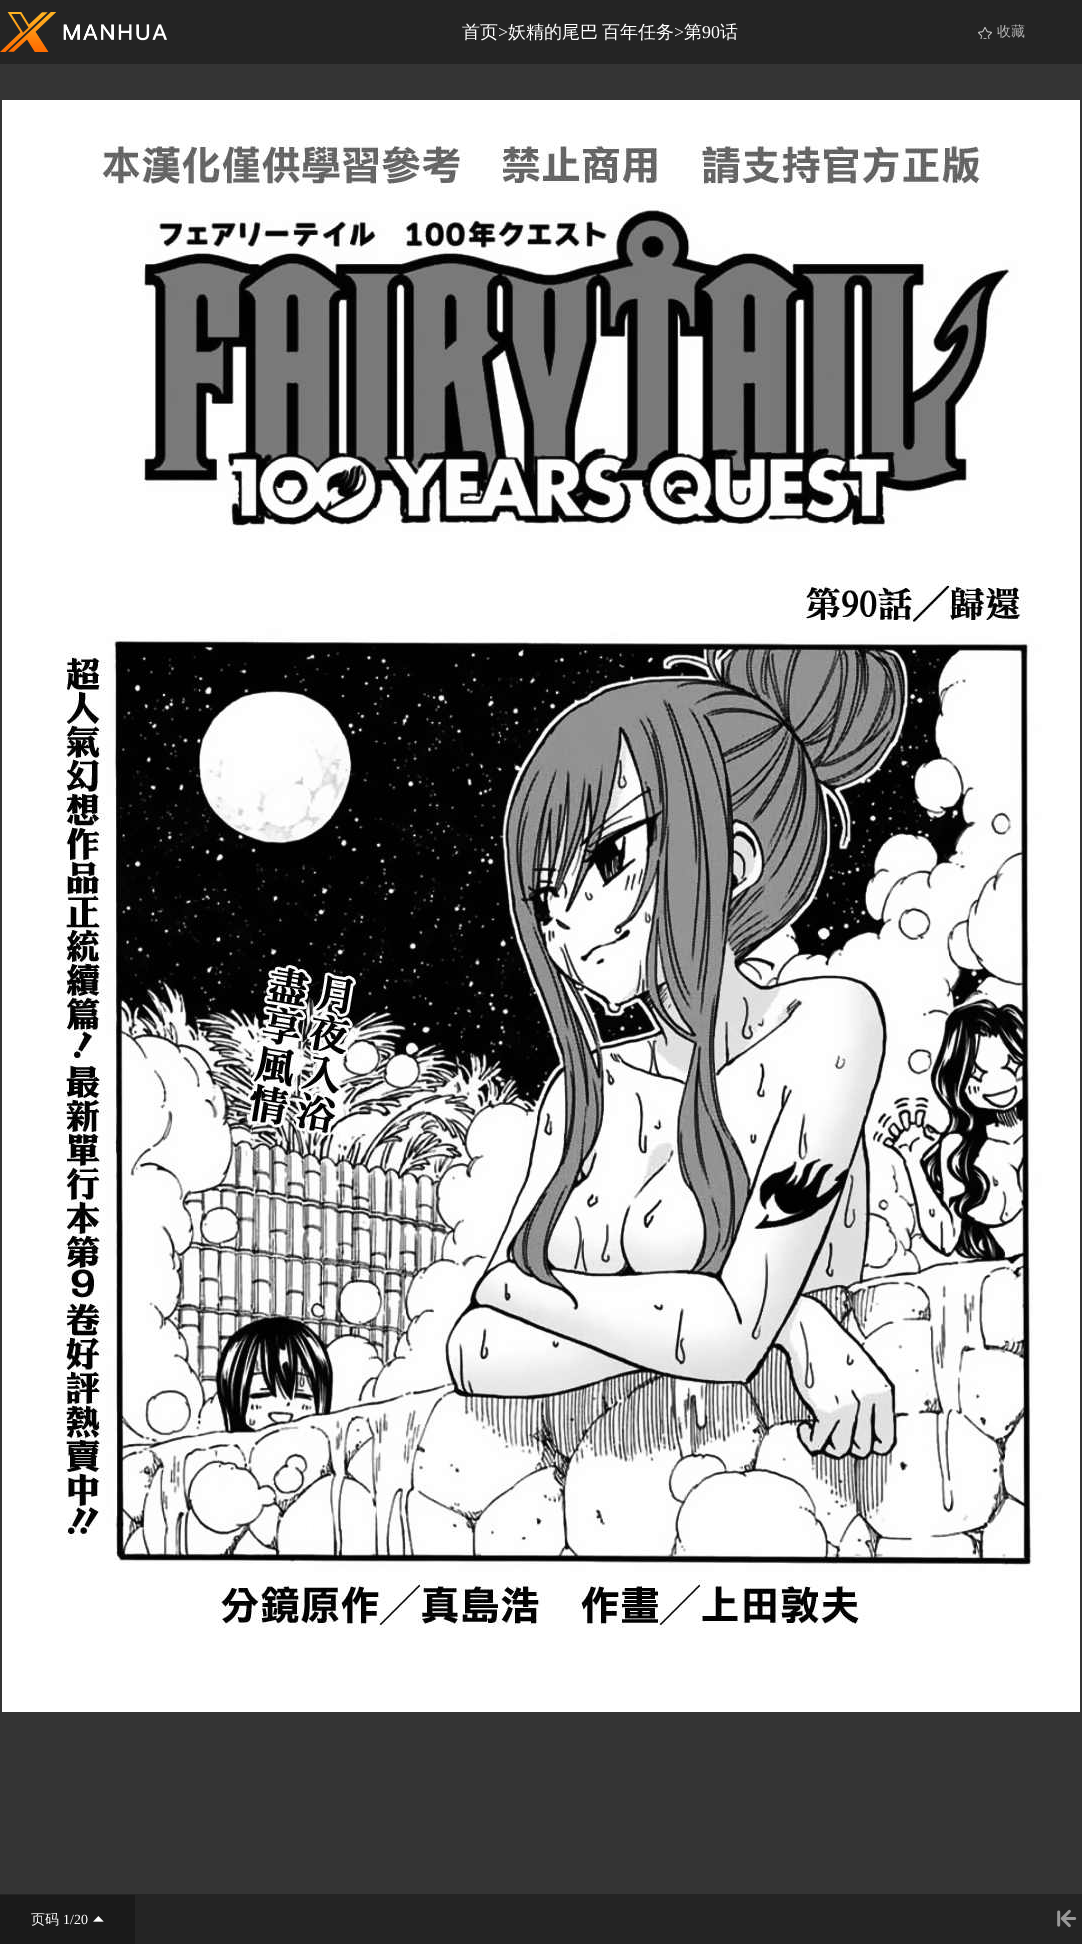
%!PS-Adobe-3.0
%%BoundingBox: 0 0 1082 1944
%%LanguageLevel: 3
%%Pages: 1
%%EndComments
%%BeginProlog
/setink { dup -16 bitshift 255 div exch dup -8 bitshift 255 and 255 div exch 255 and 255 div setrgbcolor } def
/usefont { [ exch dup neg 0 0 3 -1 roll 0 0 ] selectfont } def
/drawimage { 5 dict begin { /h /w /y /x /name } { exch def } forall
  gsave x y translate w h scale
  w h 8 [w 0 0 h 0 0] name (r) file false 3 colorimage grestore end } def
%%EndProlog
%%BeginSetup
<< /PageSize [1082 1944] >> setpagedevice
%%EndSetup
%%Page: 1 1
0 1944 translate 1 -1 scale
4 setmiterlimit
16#343434 setink
0 0 1082 1944 rectfill
16#242424 setink
0 0 1082 64 rectfill
(img1.raw) 0 12 167 40 drawimage
/WenQuanYiZenHei-Medium 18 usefont
16#FFFFFF setink
462 38 moveto (首页) show
/LiberationSerif-Regular 18 usefont
498 38 moveto (>) show
/WenQuanYiZenHei-Medium 18 usefont
508 38 moveto -1 0 32 (妖精的尾巴 百年任务) widthshow
/LiberationSerif-Regular 18 usefont
674 38 moveto (>) show
/WenQuanYiZenHei-Medium 18 usefont
684 38 moveto (第) show
/LiberationSerif-Regular 18 usefont
702 38 moveto (90) show
/WenQuanYiZenHei-Medium 18 usefont
720 38 moveto (话) show
(img2.raw) 978 27 14 12 drawimage
/WenQuanYiZenHei-Medium 14 usefont
16#B2B2B2 setink
997 36 moveto (收藏) show
(img3.raw) 2 100 1078 1612 drawimage
16#242424 setink
0 1894 1082 50 rectfill
16#1A1A1A setink
0 1895 135 49 rectfill
16#FFFFFF setink
31 1924 moveto (页码) show
/LiberationSerif-Regular 14 usefont
63 1924 moveto (1/20) show
(img4.raw) 93 1916 11 6 drawimage
(img5.raw) 1057 1909 20 19 drawimage
showpage
%%EOF
